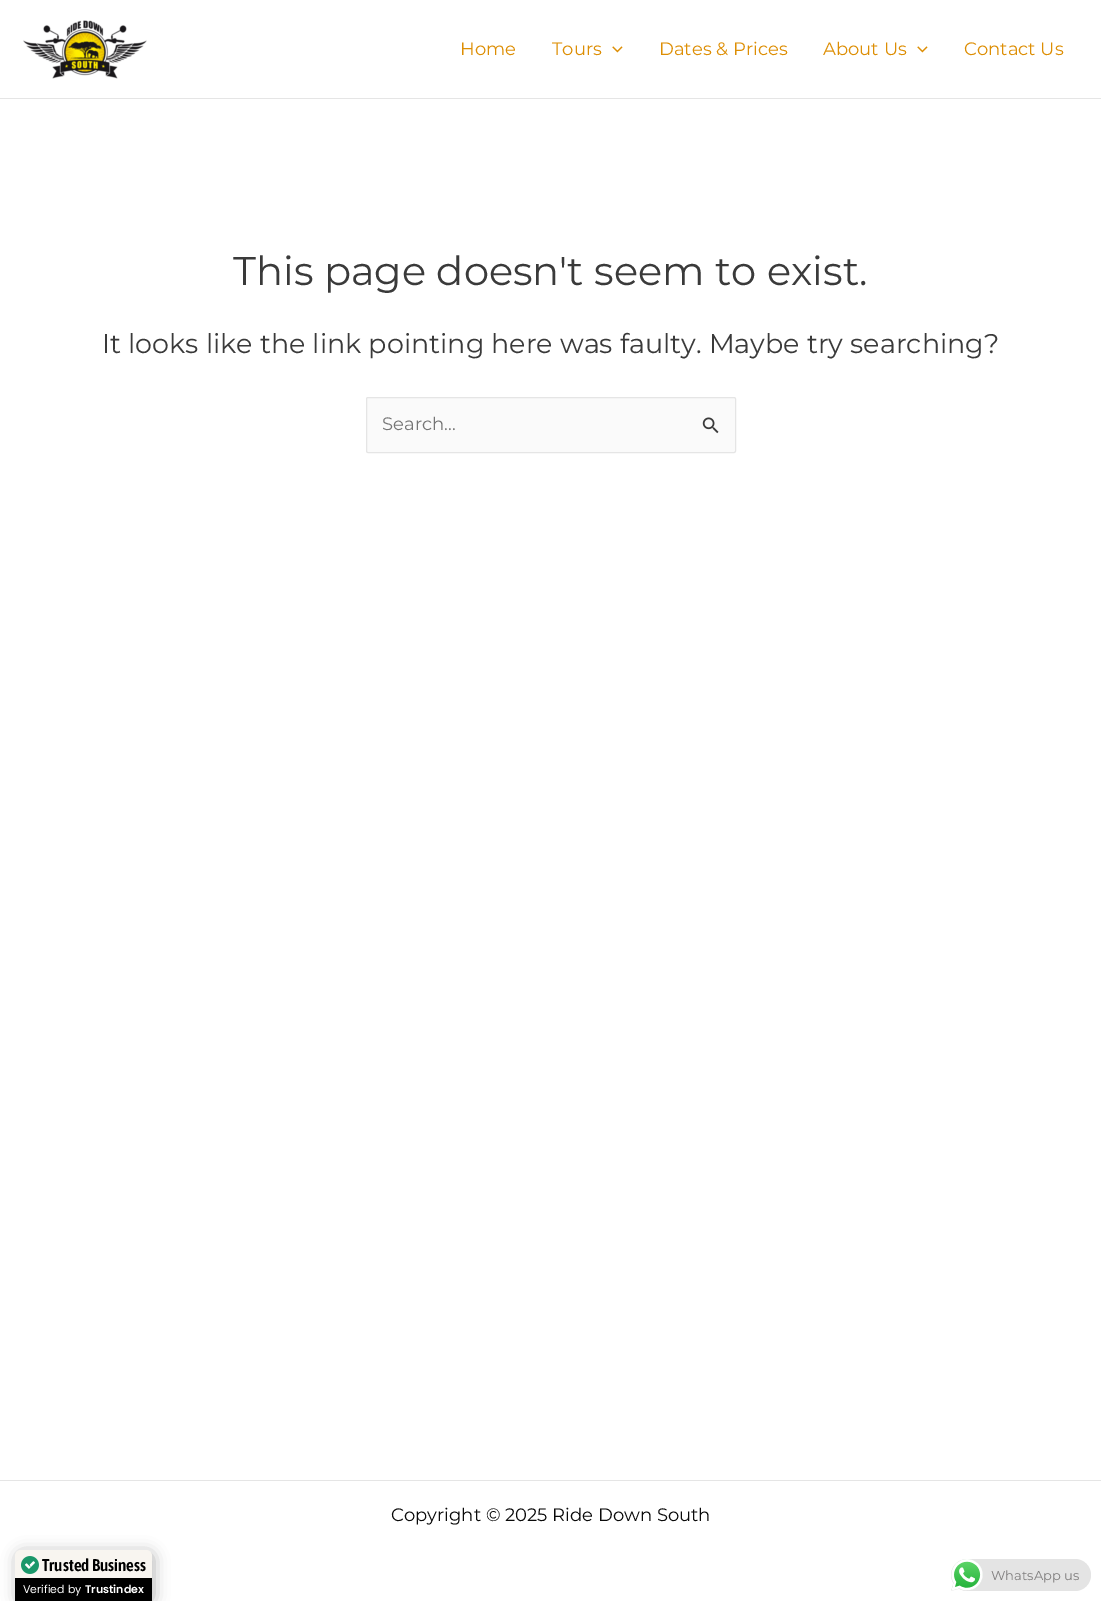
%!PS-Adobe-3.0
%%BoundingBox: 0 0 1101 1601
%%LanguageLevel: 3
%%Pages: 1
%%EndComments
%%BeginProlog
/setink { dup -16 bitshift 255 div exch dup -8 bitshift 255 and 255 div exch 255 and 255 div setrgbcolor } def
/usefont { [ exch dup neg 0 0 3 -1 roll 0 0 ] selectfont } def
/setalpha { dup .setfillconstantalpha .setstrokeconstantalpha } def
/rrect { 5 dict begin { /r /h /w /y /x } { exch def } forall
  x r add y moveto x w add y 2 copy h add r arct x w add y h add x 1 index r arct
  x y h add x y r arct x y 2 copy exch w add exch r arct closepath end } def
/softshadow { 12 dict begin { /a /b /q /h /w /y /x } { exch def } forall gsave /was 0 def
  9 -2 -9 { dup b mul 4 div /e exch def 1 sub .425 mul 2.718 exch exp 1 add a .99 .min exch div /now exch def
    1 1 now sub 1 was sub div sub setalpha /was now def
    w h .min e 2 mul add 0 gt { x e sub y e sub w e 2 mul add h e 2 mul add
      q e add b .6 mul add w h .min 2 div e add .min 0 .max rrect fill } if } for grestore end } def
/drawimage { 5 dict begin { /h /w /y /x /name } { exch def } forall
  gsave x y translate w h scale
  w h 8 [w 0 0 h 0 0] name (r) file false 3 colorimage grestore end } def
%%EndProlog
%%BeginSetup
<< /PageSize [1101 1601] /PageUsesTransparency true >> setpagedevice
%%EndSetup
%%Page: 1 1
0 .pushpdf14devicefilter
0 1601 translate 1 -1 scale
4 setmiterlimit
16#FFFFFF setink
0 0 1101 1601 rectfill
16#E5E5E5 setink
0 98 1101 1 rectfill
(img1.raw) 23 20 124 59 drawimage
/Montserrat-Regular 18 usefont
16#DD8E04 setink
460 55 moveto (Home) show
552 55 moveto (Tours) show
(img2.raw) 612 46 11 7 drawimage
659 55 moveto (Dates & Prices) show
823 55 moveto (About Us) show
(img2.raw) 917 46 11 7 drawimage
964 55 moveto (Contact Us) show
/Montserrat-Regular 40 usefont
16#3A3A3A setink
233 285 moveto (This page doesn't seem to exist.) show
/Montserrat-Regular 27 usefont
102 353 moveto (It looks like the link pointing here was faulty. Maybe try searching?) show
16#FAFAFA setink
366.5 397.5 369 55 1.5 rrect gsave fill grestore
16#E5E5E5 setink
stroke
/Montserrat-Regular 18 usefont
16#757575 setink
382 430 moveto (Search...) show
(img3.raw) 702 417 17 17 drawimage
16#E5E5E5 setink
0 1480 1101 1 rectfill
16#0A0A0A setink
391 1521 moveto (Copyright © 2025 Ride Down South) show
16#000000 setink
17 1552 137 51 6 7.5 0.3 softshadow
16#F8F5F0 setink
21 1550 moveto 146 1550 lineto 149.5 1550 152 1552.5 152 1556 curveto 152 1578 lineto 15 1578 lineto 15 1556 lineto 15 1552.5 17.5 1550 21 1550 curveto closepath fill
(img4.raw) 21 1556 18 18 drawimage
/AsapCondensed-SemiBold 17 usefont
16#000000 setink
42 1571 moveto (Trusted Business) show
15 1578 137 23 rectfill
/Poppins-Regular 11 usefont
16#FFFFFF setink
23 1593 moveto (Verified by) show
/Poppins-SemiBold 11 usefont
85 1593 moveto (Trustindex) show
16#E4E4E4 setink
951 1559 140 32 16 rrect fill
(img5.raw) 951 1559 32 32 drawimage
/Montserrat-Regular 13 usefont
16#7F7D7D setink
991 1580 moveto (WhatsApp us) show
.poppdf14devicefilter showpage
%%EOF
